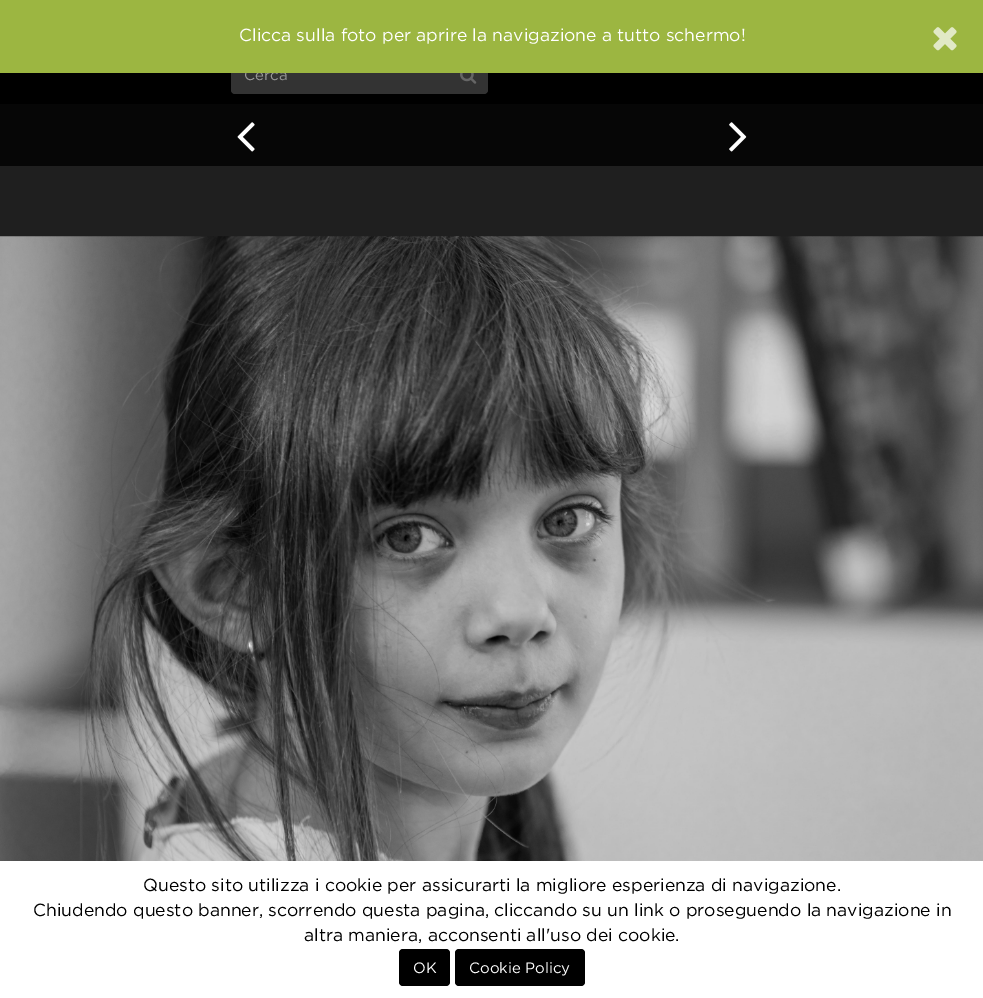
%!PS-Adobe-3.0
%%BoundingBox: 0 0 983 998
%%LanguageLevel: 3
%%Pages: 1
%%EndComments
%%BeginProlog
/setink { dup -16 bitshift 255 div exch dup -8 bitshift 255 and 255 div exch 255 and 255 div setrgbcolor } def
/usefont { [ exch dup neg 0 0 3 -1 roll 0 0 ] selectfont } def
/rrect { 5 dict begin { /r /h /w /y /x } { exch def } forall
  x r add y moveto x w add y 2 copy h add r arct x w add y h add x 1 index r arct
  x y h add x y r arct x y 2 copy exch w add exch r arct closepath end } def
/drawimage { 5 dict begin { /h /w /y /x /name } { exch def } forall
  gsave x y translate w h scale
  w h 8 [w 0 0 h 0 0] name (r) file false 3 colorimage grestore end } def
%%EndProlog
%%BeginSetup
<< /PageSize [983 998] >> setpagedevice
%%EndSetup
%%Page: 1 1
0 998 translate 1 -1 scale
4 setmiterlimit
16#1F1F1F setink
0 0 983 998 rectfill
16#000000 setink
0 73 983 31 rectfill
16#333333 setink
231 56 257 38 4 rrect fill
/Gotham-Regular 15 usefont
16#999999 setink
244 80 moveto (Cerca) show
16#9CB641 setink
0 0 983 73 rectfill
/Gotham-Regular 17.5 usefont
16#FFFFFF setink
239 41 moveto (Clicca sulla foto per aprire la navigazione a tutto schermo!) show
(img1.raw) 933 27 24 24 drawimage
16#060606 setink
0 104 983 62 rectfill
(img2.raw) 237 122 18 30 drawimage
(img3.raw) 729 122 18 30 drawimage
(img4.raw) 0 236 983 625 drawimage
(img5.raw) 460 73 17 11 drawimage
16#FFFFFF setink
0 861 983 137 rectfill
16#000000 setink
[
    [(Questo sito utilizza i cookie per assicurarti la migliore esperienza di navigazione.) 143 891]
    [(Chiudendo questo banner, scorrendo questa pagina, cliccando su un link o proseguendo la navigazione in) 33 916]
    [(altra maniera, acconsenti all'uso dei cookie.) 304 941]
] { aload pop moveto show } forall
399 949 51 37 4 rrect fill
/Gotham-Regular 15 usefont
16#FFFFFF setink
413 973 moveto (OK) show
16#000000 setink
455 949 130 37 4 rrect fill
16#FFFFFF setink
469 973 moveto (Cookie Policy) show
showpage
%%EOF
